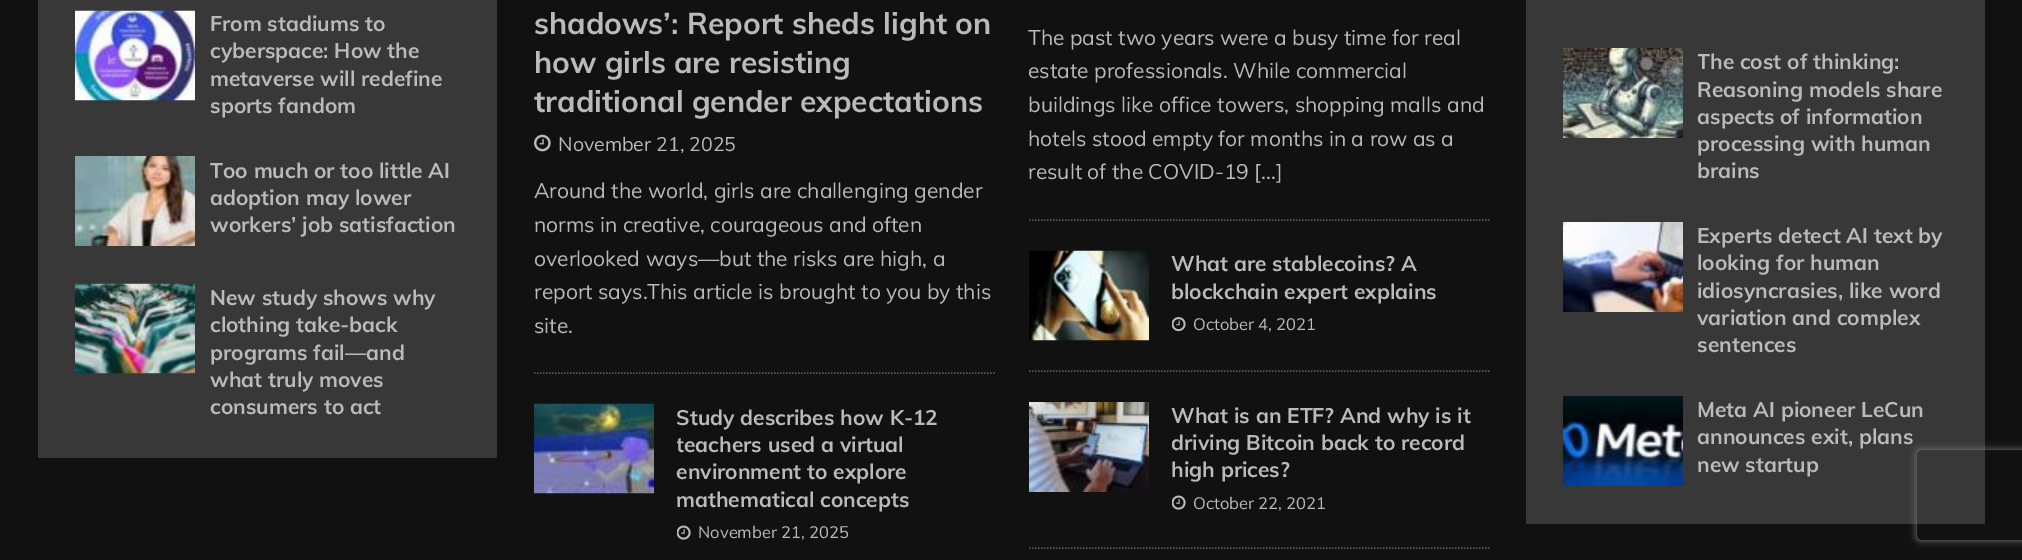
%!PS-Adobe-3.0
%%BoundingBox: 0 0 2022 560
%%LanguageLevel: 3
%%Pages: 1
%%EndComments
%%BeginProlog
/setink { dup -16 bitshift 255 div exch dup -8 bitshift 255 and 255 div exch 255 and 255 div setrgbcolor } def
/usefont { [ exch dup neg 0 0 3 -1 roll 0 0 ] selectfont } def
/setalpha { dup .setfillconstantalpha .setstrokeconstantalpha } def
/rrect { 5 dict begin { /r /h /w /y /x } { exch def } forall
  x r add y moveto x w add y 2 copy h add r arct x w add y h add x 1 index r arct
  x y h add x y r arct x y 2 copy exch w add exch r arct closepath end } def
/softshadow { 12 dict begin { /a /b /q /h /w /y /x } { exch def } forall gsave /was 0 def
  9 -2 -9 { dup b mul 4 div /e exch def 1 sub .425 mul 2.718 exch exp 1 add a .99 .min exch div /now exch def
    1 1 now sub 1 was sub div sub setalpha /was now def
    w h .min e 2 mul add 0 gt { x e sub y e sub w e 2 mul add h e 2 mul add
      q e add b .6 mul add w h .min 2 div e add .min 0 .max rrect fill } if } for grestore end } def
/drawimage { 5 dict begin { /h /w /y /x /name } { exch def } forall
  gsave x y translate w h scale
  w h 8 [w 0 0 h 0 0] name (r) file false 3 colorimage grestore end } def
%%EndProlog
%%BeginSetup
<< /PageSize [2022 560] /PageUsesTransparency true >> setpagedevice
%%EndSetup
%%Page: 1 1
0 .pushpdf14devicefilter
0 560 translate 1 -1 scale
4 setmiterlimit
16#111111 setink
0 0 2022 560 rectfill
16#383838 setink
38 0 459 458 rectfill
(img1.raw) 75 10 120 91 drawimage
/Muli-Bold 21 usefont
16#BABABA setink
[
    [(From stadiums to) 210 31]
    [(cyberspace: How the) 210 58]
    [(metaverse will redefine) 210 86]
    [(sports fandom) 210 113]
] { aload pop moveto show } forall
(img2.raw) 75 156 120 90 drawimage
[
    [(Too much or too little AI) 210 178]
    [(adoption may lower) 210 205]
    [(workers’ job satisfaction) 210 232]
] { aload pop moveto show } forall
(img3.raw) 75 283 120 91 drawimage
[
    [(New study shows why) 210 305]
    [(clothing take-back) 210 332]
    [(programs fail—and) 210 360]
    [(what truly moves) 210 387]
    [(consumers to act) 210 414]
] { aload pop moveto show } forall
16#585858 setink
1.5 setlinewidth
[1.5 1.5] 0 setdash
534 373 moveto 994.5 373 lineto stroke
/Muli-Bold 30 usefont
16#BABABA setink
534 34 moveto (shadows’: Report sheds light on) show
534 73 moveto (how girls are resisting) show
gsave
534 0 461 159 rectclip
534 112 moveto (traditional gender expectations) show
grestore
(img4.raw) 534 134 17 18 drawimage
/Muli-Regular 19.5 usefont
558 151 moveto (November 21, 2025) show
/Muli-Regular 21 usefont
[
    [(Around the world, girls are challenging gender) 534 198]
    [(norms in creative, courageous and often) 534 232]
    [(overlooked ways—but the risks are high, a) 534 266]
    [(report says.This article is brought to you by this) 534 299]
    [(site.) 534 333]
] { aload pop moveto show } forall
(img5.raw) 534 403 120 91 drawimage
/Muli-Bold 21 usefont
676 425 moveto (Study describes how K-12) show
gsave
677 404 318 144 rectclip
676 452 moveto (teachers used a virtual) show
grestore
676 479 moveto (environment to explore) show
676 507 moveto (mathematical concepts) show
(img6.raw) 677 525 14 15 drawimage
/Muli-Regular 16.5 usefont
698 538 moveto (November 21, 2025) show
16#585858 setink
1029 220 moveto 1489.5 220 lineto stroke
/Muli-Regular 21 usefont
16#BABABA setink
[
    [(The past two years were a busy time for real) 1028 45]
    [(estate professionals. While commercial) 1028 78]
    [(buildings like office towers, shopping malls and) 1028 112]
    [(hotels stood empty for months in a row as a) 1028 146]
    [(result of the COVID-19 [...]) 1028 179]
] { aload pop moveto show } forall
16#585858 setink
1029 371 moveto 1489.5 371 lineto stroke
(img7.raw) 1029 250 120 91 drawimage
/Muli-Bold 21 usefont
16#BABABA setink
1171 271 moveto (What are stablecoins? A) show
1171 299 moveto (blockchain expert explains) show
(img8.raw) 1172 317 14 15 drawimage
/Muli-Regular 16.5 usefont
1193 330 moveto (October 4, 2021) show
16#585858 setink
1029 548 moveto 1489.5 548 lineto stroke
(img9.raw) 1029 402 120 90 drawimage
/Muli-Bold 21 usefont
16#BABABA setink
1171 423 moveto (What is an ETF? And why is it) show
gsave
1172 402 318 116 rectclip
1171 450 moveto (driving Bitcoin back to record) show
grestore
1171 477 moveto (high prices?) show
(img6.raw) 1172 495 14 15 drawimage
/Muli-Regular 16.5 usefont
1193 509 moveto (October 22, 2021) show
16#383838 setink
1526 0 459 524 rectfill
(img10.raw) 1563 48 120 90 drawimage
gsave
1698 48 249 137 rectclip
/Muli-Bold 21 usefont
16#BABABA setink
1697 69 moveto (The cost of thinking:) show
grestore
/Muli-Bold 21 usefont
16#BABABA setink
[
    [(Reasoning models share) 1697 97]
    [(aspects of information) 1697 124]
    [(processing with human) 1697 151]
    [(brains) 1697 178]
] { aload pop moveto show } forall
(img11.raw) 1563 222 120 90 drawimage
[
    [(Experts detect AI text by) 1697 243]
    [(looking for human) 1697 270]
    [(idiosyncrasies, like word) 1697 298]
    [(variation and complex) 1697 325]
    [(sentences) 1697 352]
] { aload pop moveto show } forall
(img12.raw) 1563 396 120 90 drawimage
[
    [(Meta AI pioneer LeCun) 1697 417]
    [(announces exit, plans) 1697 444]
    [(new startup) 1697 472]
] { aload pop moveto show } forall
gsave
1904 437 moveto 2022 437 lineto 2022 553 lineto 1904 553 lineto closepath 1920 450 moveto 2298 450 lineto 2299.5 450 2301 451.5 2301 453 curveto 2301 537 lineto 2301 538.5 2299.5 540 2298 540 curveto 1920 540 lineto 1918.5 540 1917 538.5 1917 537 curveto 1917 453 lineto 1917 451.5 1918.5 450 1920 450 curveto closepath eoclip newpath
16#808080 setink
1917 450 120 90 3 4 1 softshadow
grestore
.poppdf14devicefilter showpage
%%EOF
